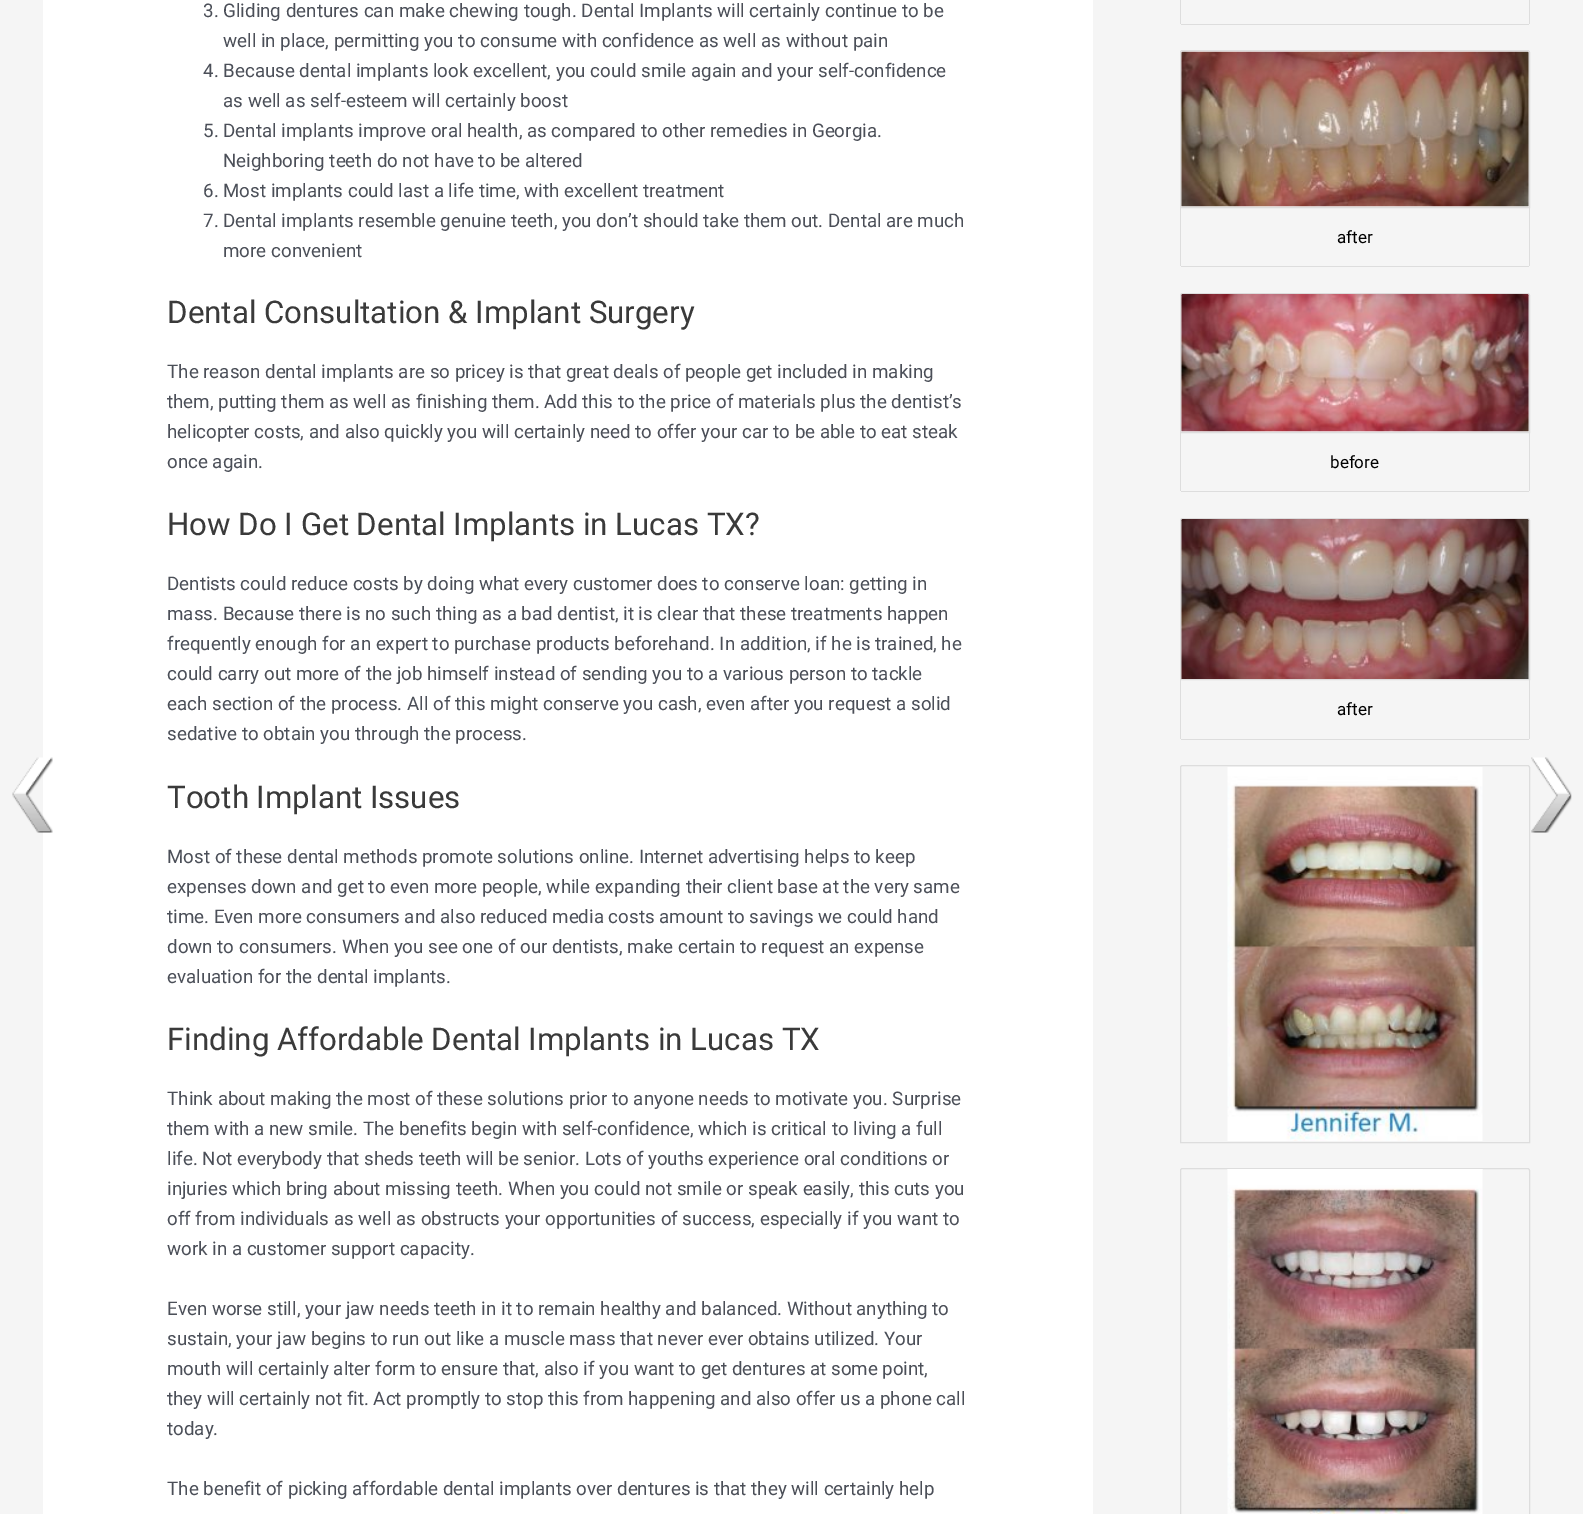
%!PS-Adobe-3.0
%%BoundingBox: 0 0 1583 1514
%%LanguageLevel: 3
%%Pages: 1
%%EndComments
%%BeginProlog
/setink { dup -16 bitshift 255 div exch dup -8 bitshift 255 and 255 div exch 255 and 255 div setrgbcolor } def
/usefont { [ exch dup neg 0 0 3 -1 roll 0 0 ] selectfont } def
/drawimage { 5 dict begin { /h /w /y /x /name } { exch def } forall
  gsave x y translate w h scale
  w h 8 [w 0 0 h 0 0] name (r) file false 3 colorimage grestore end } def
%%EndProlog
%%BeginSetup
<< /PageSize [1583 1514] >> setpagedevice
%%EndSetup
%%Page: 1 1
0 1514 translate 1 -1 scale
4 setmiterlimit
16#F5F5F5 setink
0 0 1583 1514 rectfill
16#FFFFFF setink
43 0 1050 1514 rectfill
(img1.raw) 12 757 41 76 drawimage
/Roboto-Regular 18.75 usefont
16#4B4F58 setink
[
    [(3. Gliding dentures can make chewing tough. Dental Implants will certainly continue to be) 203 17]
    [(well in place, permitting you to consume with confidence as well as without pain) 223 47]
    [(4. Because dental implants look excellent, you could smile again and your self-confidence) 203 77]
    [(as well as self-esteem will certainly boost) 223 107]
    [(5. Dental implants improve oral health, as compared to other remedies in Georgia.) 203 137]
    [(Neighboring teeth do not have to be altered) 223 167]
    [(6. Most implants could last a life time, with excellent treatment) 203 197]
    [(7. Dental implants resemble genuine teeth, you don’t should take them out. Dental are much) 203 227]
    [(more convenient) 223 257]
] { aload pop moveto show } forall
/Roboto-Regular 31.25 usefont
16#3A3A3A setink
167 323 moveto (Dental Consultation & Implant Surgery) show
/Roboto-Regular 18.75 usefont
16#4B4F58 setink
[
    [(The reason dental implants are so pricey is that great deals of people get included in making) 167 378]
    [(them, putting them as well as finishing them. Add this to the price of materials plus the dentist’s) 167 408]
    [(helicopter costs, and also quickly you will certainly need to offer your car to be able to eat steak) 167 438]
    [(once again.) 167 468]
] { aload pop moveto show } forall
/Roboto-Regular 31.25 usefont
16#3A3A3A setink
167 535 moveto (How Do I Get Dental Implants in Lucas TX?) show
/Roboto-Regular 18.75 usefont
16#4B4F58 setink
[
    [(Dentists could reduce costs by doing what every customer does to conserve loan: getting in) 167 590]
    [(mass. Because there is no such thing as a bad dentist, it is clear that these treatments happen) 167 620]
    [(frequently enough for an expert to purchase products beforehand. In addition, if he is trained, he) 167 650]
    [(could carry out more of the job himself instead of sending you to a various person to tackle) 167 680]
    [(each section of the process. All of this might conserve you cash, even after you request a solid) 167 710]
    [(sedative to obtain you through the process.) 167 740]
] { aload pop moveto show } forall
/Roboto-Regular 31.25 usefont
16#3A3A3A setink
167 808 moveto (Tooth Implant Issues) show
/Roboto-Regular 18.75 usefont
16#4B4F58 setink
[
    [(Most of these dental methods promote solutions online. Internet advertising helps to keep) 167 863]
    [(expenses down and get to even more people, while expanding their client base at the very same) 167 893]
    [(time. Even more consumers and also reduced media costs amount to savings we could hand) 167 923]
    [(down to consumers. When you see one of our dentists, make certain to request an expense) 167 953]
    [(evaluation for the dental implants.) 167 983]
] { aload pop moveto show } forall
/Roboto-Regular 31.25 usefont
16#3A3A3A setink
167 1050 moveto (Finding Affordable Dental Implants in Lucas TX) show
/Roboto-Regular 18.75 usefont
16#4B4F58 setink
[
    [(Think about making the most of these solutions prior to anyone needs to motivate you. Surprise) 167 1105]
    [(them with a new smile. The benefits begin with self-confidence, which is critical to living a full) 167 1135]
    [(life. Not everybody that sheds teeth will be senior. Lots of youths experience oral conditions or) 167 1165]
    [(injuries which bring about missing teeth. When you could not smile or speak easily, this cuts you) 167 1195]
    [(off from individuals as well as obstructs your opportunities of success, especially if you want to) 167 1225]
    [(work in a customer support capacity.) 167 1255]
    [(Even worse still, your jaw needs teeth in it to remain healthy and balanced. Without anything to) 167 1315]
    [(sustain, your jaw begins to run out like a muscle mass that never ever obtains utilized. Your) 167 1345]
    [(mouth will certainly alter form to ensure that, also if you want to get dentures at some point,) 167 1375]
    [(they will certainly not fit. Act promptly to stop this from happening and also offer us a phone call) 167 1405]
    [(today.) 167 1435]
    [(The benefit of picking affordable dental implants over dentures is that they will certainly help) 167 1495]
] { aload pop moveto show } forall
[
    [1529 0 1 24 16#DDDDDD]
    [1181 24 348 1 16#DDDDDD]
    [1180 0 1 24 16#DDDDDD]
] { aload pop setink rectfill } forall
1182.5 50.5 moveto 1527.5 50.5 lineto 1528.5 50.5 1529.5 51.5 1529.5 52.5 curveto 1529.5 207.5 lineto 1180.5 207.5 lineto 1180.5 52.5 lineto 1180.5 51.5 1181.5 50.5 1182.5 50.5 curveto closepath stroke
(img2.raw) 1181 51 348 156 drawimage
[
    [1529 208 1 58 16#DDDDDD]
    [1181 266 348 1 16#DDDDDD]
    [1180 208 1 58 16#DDDDDD]
] { aload pop setink rectfill } forall
/Roboto-Regular 17 usefont
16#000000 setink
1337 243 moveto (after) show
16#DDDDDD setink
1182.5 293.5 moveto 1527.5 293.5 lineto 1528.5 293.5 1529.5 294.5 1529.5 295.5 curveto 1529.5 432.5 lineto 1180.5 432.5 lineto 1180.5 295.5 lineto 1180.5 294.5 1181.5 293.5 1182.5 293.5 curveto closepath stroke
(img3.raw) 1181 294 348 138 drawimage
[
    [1529 433 1 58 16#DDDDDD]
    [1181 491 348 1 16#DDDDDD]
    [1180 433 1 58 16#DDDDDD]
] { aload pop setink rectfill } forall
16#000000 setink
1330 468 moveto (before) show
16#DDDDDD setink
1182.5 518.5 moveto 1527.5 518.5 lineto 1528.5 518.5 1529.5 519.5 1529.5 520.5 curveto 1529.5 679.5 lineto 1180.5 679.5 lineto 1180.5 520.5 lineto 1180.5 519.5 1181.5 518.5 1182.5 518.5 curveto closepath stroke
(img4.raw) 1181 519 348 160 drawimage
[
    [1529 680 1 59 16#DDDDDD]
    [1181 739 348 1 16#DDDDDD]
    [1180 680 1 59 16#DDDDDD]
] { aload pop setink rectfill } forall
16#000000 setink
1337 715 moveto (after) show
16#DDDDDD setink
1182.5 765.5 moveto 1527.5 765.5 lineto 1528.5 765.5 1529.5 766.5 1529.5 767.5 curveto 1529.5 1142.5 lineto 1180.5 1142.5 lineto 1180.5 767.5 lineto 1180.5 766.5 1181.5 765.5 1182.5 765.5 curveto closepath stroke
(img5.raw) 1227 767 256 374 drawimage
1182.5 1168.5 moveto 1527.5 1168.5 lineto 1528.5 1168.5 1529.5 1169.5 1529.5 1170.5 curveto 1529.5 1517.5 lineto 1180.5 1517.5 lineto 1180.5 1170.5 lineto 1180.5 1169.5 1181.5 1168.5 1182.5 1168.5 curveto closepath stroke
(img6.raw) 1227 1169 256 345 drawimage
(img7.raw) 1531 757 41 76 drawimage
showpage
%%EOF
